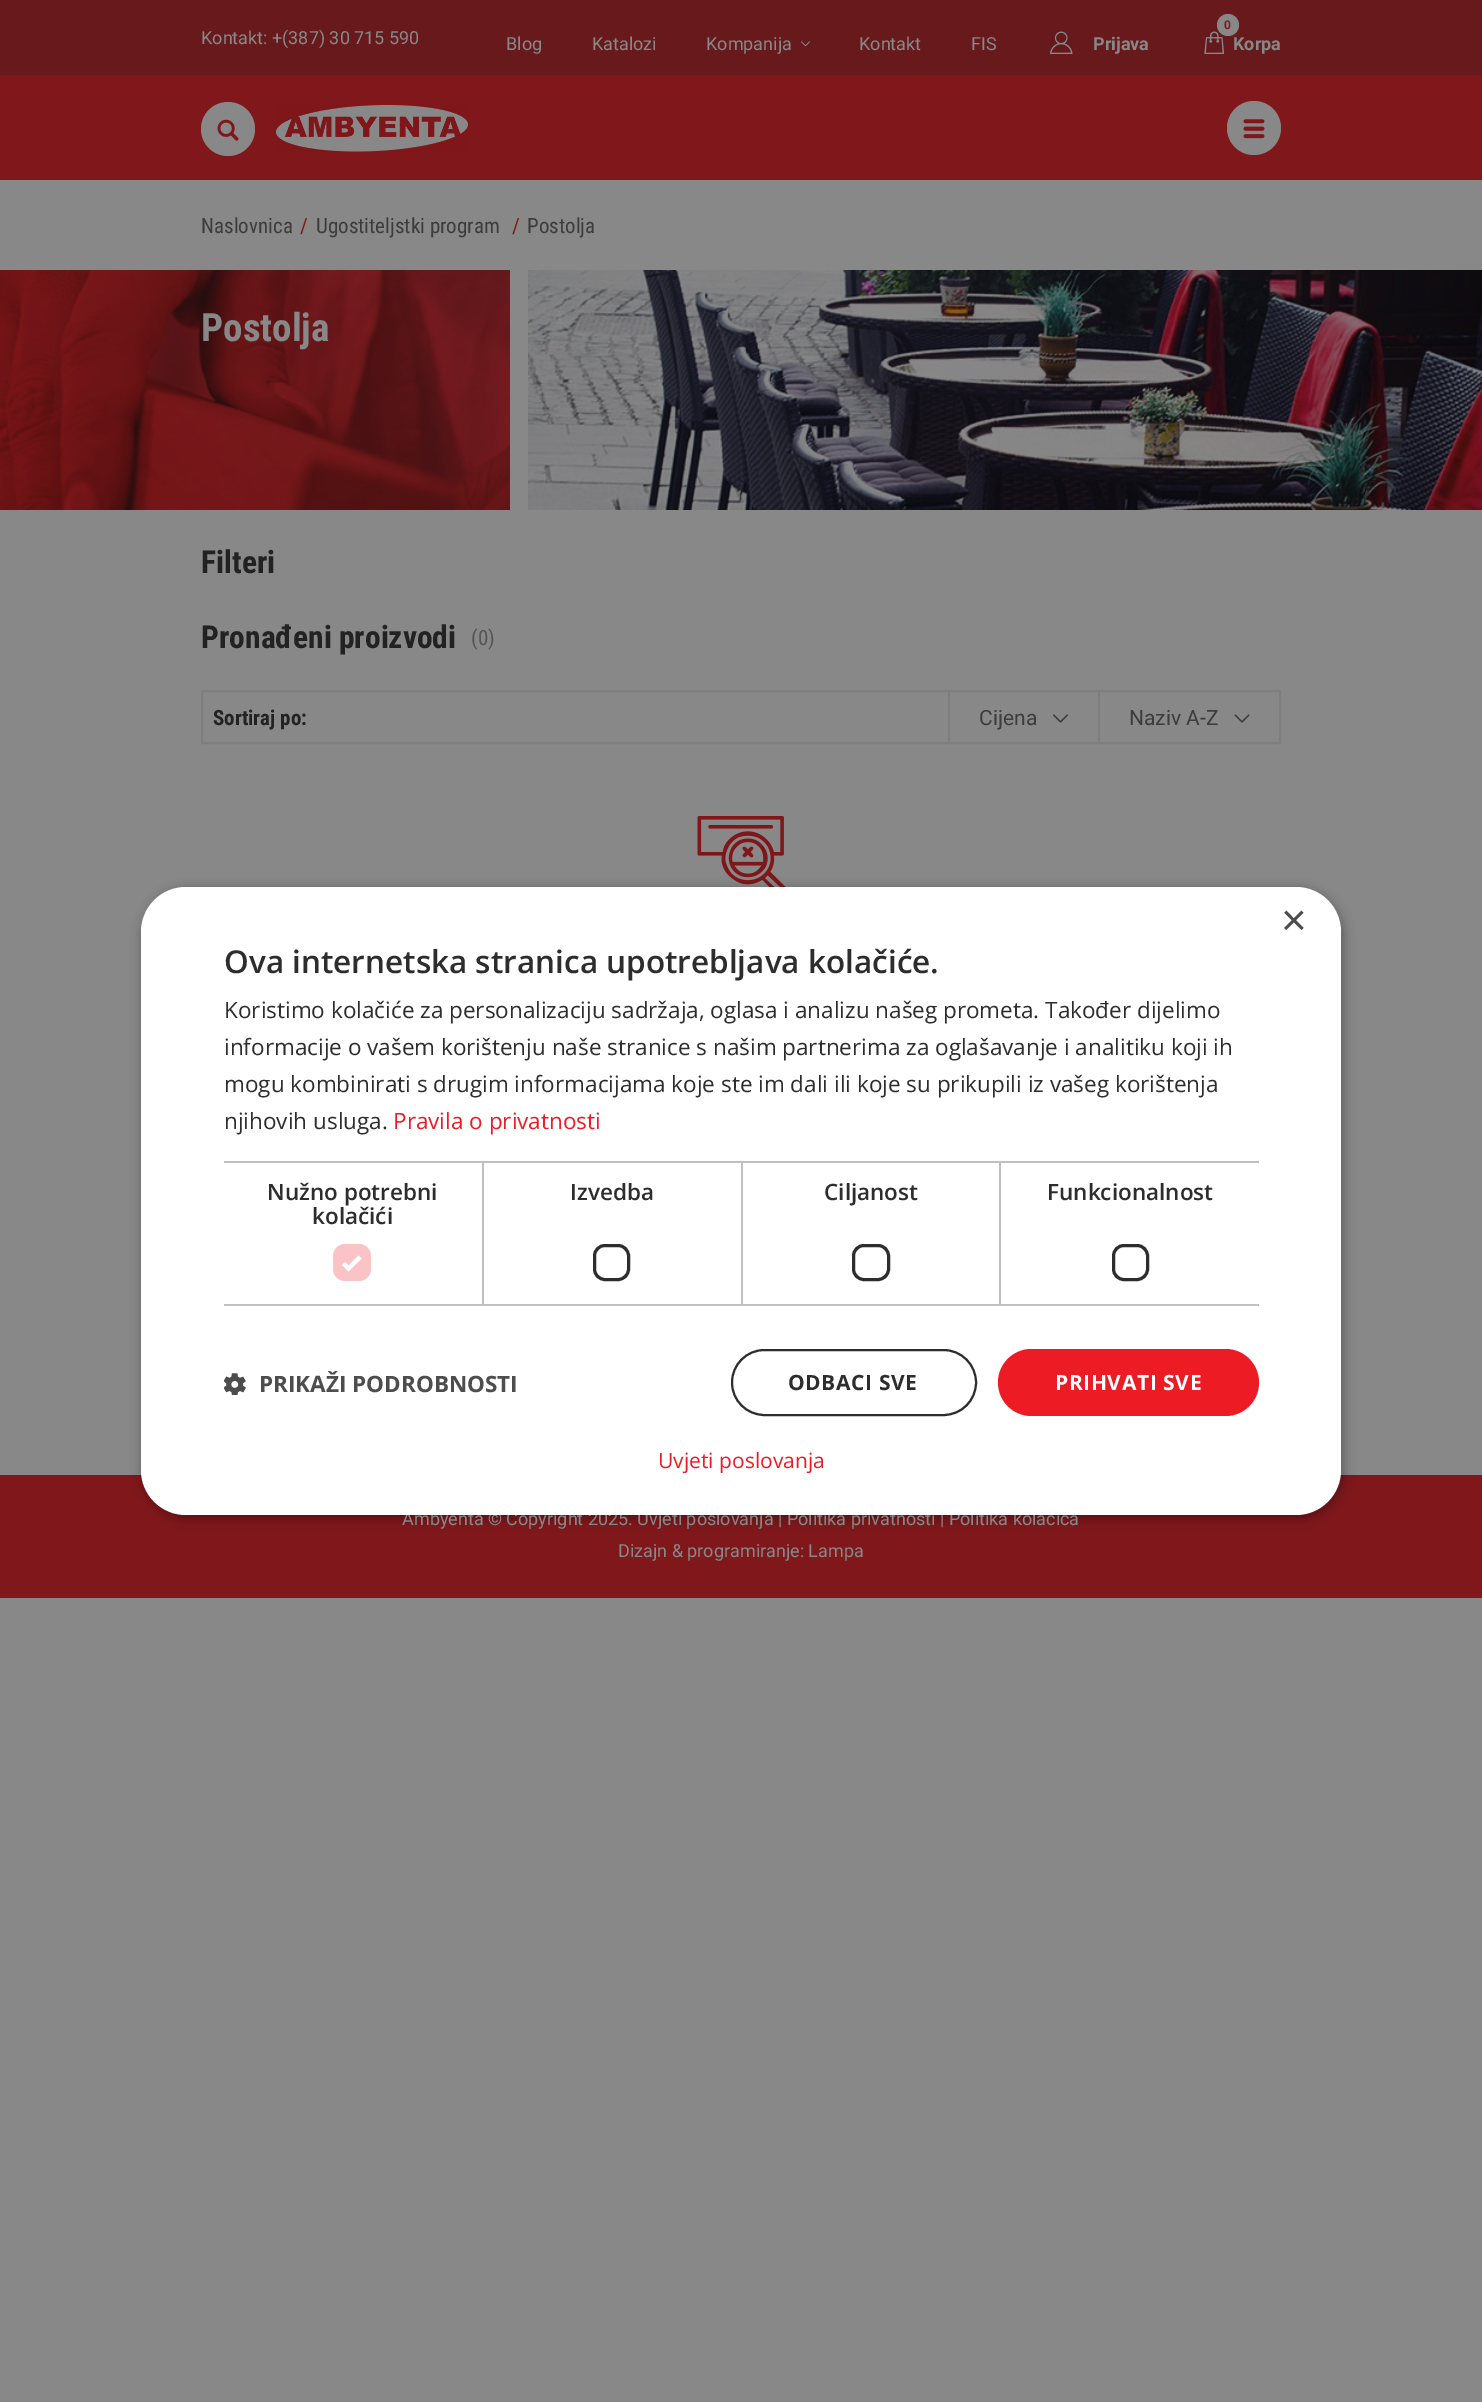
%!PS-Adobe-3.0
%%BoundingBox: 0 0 1482 2402
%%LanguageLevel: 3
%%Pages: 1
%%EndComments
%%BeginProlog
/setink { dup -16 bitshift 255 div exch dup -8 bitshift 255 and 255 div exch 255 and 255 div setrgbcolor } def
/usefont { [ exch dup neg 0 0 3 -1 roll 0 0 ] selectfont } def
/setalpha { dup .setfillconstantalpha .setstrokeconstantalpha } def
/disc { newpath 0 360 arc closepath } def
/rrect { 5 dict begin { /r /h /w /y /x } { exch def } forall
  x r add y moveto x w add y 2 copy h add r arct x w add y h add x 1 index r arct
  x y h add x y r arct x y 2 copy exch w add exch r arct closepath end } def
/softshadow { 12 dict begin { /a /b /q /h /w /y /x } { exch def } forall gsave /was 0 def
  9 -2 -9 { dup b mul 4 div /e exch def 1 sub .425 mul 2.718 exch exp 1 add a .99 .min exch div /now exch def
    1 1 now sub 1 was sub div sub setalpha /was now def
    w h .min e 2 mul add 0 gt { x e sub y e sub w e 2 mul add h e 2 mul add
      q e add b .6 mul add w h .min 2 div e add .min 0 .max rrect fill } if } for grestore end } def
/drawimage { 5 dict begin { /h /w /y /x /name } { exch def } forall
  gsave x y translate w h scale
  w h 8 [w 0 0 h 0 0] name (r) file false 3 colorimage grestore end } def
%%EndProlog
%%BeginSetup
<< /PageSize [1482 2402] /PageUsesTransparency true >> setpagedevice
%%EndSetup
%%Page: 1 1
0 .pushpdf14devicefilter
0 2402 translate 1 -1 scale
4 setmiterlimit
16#888888 setink
0 0 1482 2402 rectfill
16#67191C setink
0 0 1482 75 rectfill
/Roboto-Regular 18 usefont
16#888888 setink
[
    [(Kontakt: +\(387\) 30 715 590) 201 44]
    [(Blog) 506 50]
    [(Katalozi) 592 50]
    [(Kompanija) 706 50]
] { aload pop moveto show } forall
(img1.raw) 801 41 9 6 drawimage
859 50 moveto (Kontakt) show
971 50 moveto (FIS) show
(img2.raw) 1050 31 23 23 drawimage
/Roboto-Bold 18 usefont
1093 50 moveto (Prijava) show
(img3.raw) 1204 31 21 23 drawimage
1228 25 11 disc fill
/Roboto-Bold 12 usefont
16#7F171B setink
1224 29 moveto (0) show
/Roboto-Bold 18 usefont
16#888888 setink
1233 50 moveto (Korpa) show
16#7F171B setink
0 75 1482 105 rectfill
16#888888 setink
228 129 27 disc fill
(img4.raw) 217 119 22 22 drawimage
(img5.raw) 276 105 192 47 drawimage
1254 128 27 disc fill
(img6.raw) 1243 119 22 20 drawimage
/RobotoCondensed-Regular 21 usefont
16#3C3C3C setink
201 233 moveto (Naslovnica) show
16#7F171B setink
300 233 moveto (/) show
16#3C3C3C setink
316 233 moveto (Ugostiteljstki program) show
16#7F171B setink
512 233 moveto (/) show
16#3C3C3C setink
527 233 moveto (Postolja) show
(img7.raw) 0 270 510 240 drawimage
(img8.raw) 528 270 954 240 drawimage
/RobotoCondensed-Bold 39 usefont
16#888888 setink
201 341 moveto (Postolja) show
/RobotoCondensed-Bold 31.5 usefont
16#222222 setink
201 573 moveto (Filteri) show
201 648 moveto (Pronađeni proizvodi) show
/RobotoCondensed-Regular 21 usefont
16#555555 setink
471 645 moveto (\(0\)) show
16#7E7E7E setink
2 setlinewidth
202 691 1078 52 rectstroke
/RobotoCondensed-Bold 21 usefont
16#222222 setink
213 725 moveto (Sortiraj po:) show
16#7E7E7E setink
948 692 2 51 rectfill
/Roboto-Regular 21 usefont
16#3C3C3C setink
979 725 moveto (Cijena) show
(img9.raw) 1053 714 15 9 drawimage
16#7E7E7E setink
1098 692 2 51 rectfill
16#3C3C3C setink
1129 725 moveto (Naziv A-Z) show
(img10.raw) 1234 714 16 9 drawimage
(img11.raw) 697 816 89 71 drawimage
16#7F171B setink
0 1475 1482 123 rectfill
16#000000 setink
143 890 1200 628 45 6 0.35 softshadow
/Roboto-Regular 18 usefont
16#888888 setink
402 1525 moveto (Ambyenta © Copyright 2025. Uvjeti poslovanja | Politika privatnosti | Politika kolačića) show
16#FFFFFF setink
141 887 1200 628 45 rrect fill
/LiberationSans-Regular 44 usefont
16#4D4D4D setink
1281 935 moveto (×) show
/OpenSans-SemiBold 31.5 usefont
16#2D2D2D setink
224 973 moveto (Ova internetska stranica upotrebljava kolačiće.) show
/OpenSans-Regular 22.5 usefont
[
    [(Koristimo kolačiće za personalizaciju sadržaja, oglasa i analizu našeg prometa. Također dijelimo) 224 1018]
    [(informacije o vašem korištenju naše stranice s našim partnerima za oglašavanje i analitiku koji ih) 224 1055]
    [(mogu kombinirati s drugim informacijama koje ste im dali ili koje su prikupili iz vašeg korištenja) 224 1092]
    [(njihovih usluga.) 224 1129]
] { aload pop moveto show } forall
16#ED1C24 setink
393 1129 moveto (Pravila o privatnosti) show
[
    [224 1161 259 2 16#C0C0C0]
    [482 1161 2 144 16#C0C0C0]
    [224 1304 259 2 16#C0C0C0]
] { aload pop setink rectfill } forall
/OpenSans-SemiBold 22.5 usefont
16#2D2D2D setink
267 1200 moveto (Nužno potrebni) show
312 1224 moveto (kolačići) show
16#FAC4C6 setink
333 1244 38 37 12 rrect fill
16#FFFFFF setink
3.9 setlinewidth
343.5 1263.5 moveto 348.5 1268.5 lineto 360 1257 lineto stroke
[
    [483 1161 776 2 16#C0C0C0]
    [741 1161 2 144 16#C0C0C0]
    [483 1304 260 2 16#C0C0C0]
] { aload pop setink rectfill } forall
16#2D2D2D setink
570 1200 moveto (Izvedba) show
3 setlinewidth
594.5 1245.5 34 34 10.5 rrect stroke
16#C0C0C0 setink
999 1161 2 144 rectfill
743 1304 516 2 rectfill
16#2D2D2D setink
824 1200 moveto (Ciljanost) show
853.5 1245.5 35 34 10.5 rrect stroke
1047 1200 moveto (Funkcionalnost) show
1113.5 1245.5 34 34 10.5 rrect stroke
(img12.raw) 224 1373 22 22 drawimage
/OpenSans-Bold 22.5 usefont
16#4D4D4D setink
259 1392 moveto (PRIKAŽI PODROBNOSTI) show
16#2D2D2D setink
2 setlinewidth
732 1350 244 65 32.5 rrect stroke
/OpenSans-Bold 21 usefont
788 1390 moveto 0.6 0 (ODBACI SVE) ashow
16#ED1C24 setink
998 1349 261 67 33.5 rrect fill
16#FFFFFF setink
1055 1390 moveto 0.6 0 (PRIHVATI SVE) ashow
/OpenSans-Regular 21 usefont
16#ED1C24 setink
658 1468 moveto (Uvjeti poslovanja) show
/Roboto-Regular 18 usefont
16#888888 setink
618 1557 moveto (Dizajn & programiranje: Lampa) show
.poppdf14devicefilter showpage
%%EOF
